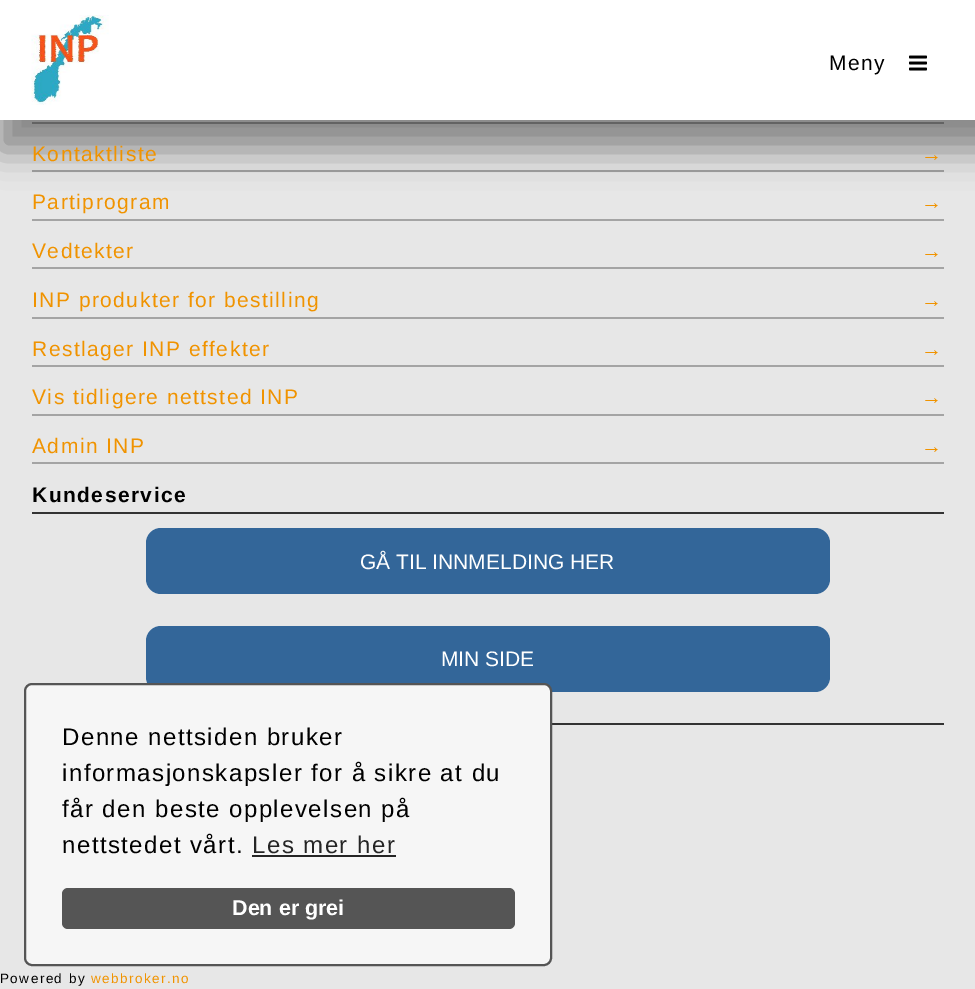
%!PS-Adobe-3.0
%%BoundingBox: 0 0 975 989
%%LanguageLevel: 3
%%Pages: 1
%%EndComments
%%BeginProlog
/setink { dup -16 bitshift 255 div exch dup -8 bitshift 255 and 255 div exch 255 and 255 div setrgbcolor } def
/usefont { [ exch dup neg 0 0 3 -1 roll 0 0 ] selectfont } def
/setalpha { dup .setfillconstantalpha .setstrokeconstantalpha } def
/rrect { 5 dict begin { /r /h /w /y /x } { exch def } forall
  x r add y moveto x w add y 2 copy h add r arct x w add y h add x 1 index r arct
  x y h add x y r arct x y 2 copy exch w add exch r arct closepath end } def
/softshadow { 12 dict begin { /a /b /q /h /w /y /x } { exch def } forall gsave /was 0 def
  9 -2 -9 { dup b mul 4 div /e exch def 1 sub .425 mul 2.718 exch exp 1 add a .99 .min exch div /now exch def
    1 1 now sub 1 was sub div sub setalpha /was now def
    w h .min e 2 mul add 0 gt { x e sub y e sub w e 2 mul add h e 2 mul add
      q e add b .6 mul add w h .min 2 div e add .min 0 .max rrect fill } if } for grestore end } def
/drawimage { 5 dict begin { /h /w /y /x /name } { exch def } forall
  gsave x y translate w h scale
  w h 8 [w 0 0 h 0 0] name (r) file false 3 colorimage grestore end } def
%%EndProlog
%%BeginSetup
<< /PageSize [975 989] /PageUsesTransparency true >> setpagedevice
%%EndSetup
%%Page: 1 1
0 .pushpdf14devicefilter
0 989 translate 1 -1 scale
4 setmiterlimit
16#E7E7E7 setink
0 0 975 989 rectfill
16#A4A4A4 setink
32 122 912 2 rectfill
32 170 912 2 rectfill
16#000000 setink
-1 0 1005 150 0 18 0.42 softshadow
16#FFFFFF setink
0 0 975 120 rectfill
(img1.raw) 31 15 78 90 drawimage
/LiberationSans-Regular 21 usefont
16#000000 setink
829 70 moveto 1.45 0 (Meny) ashow
(img2.raw) 909 55 18 16 drawimage
16#F09300 setink
32 161 moveto 1.45 0 (Kontaktliste) ashow
921 161 moveto 1.45 0 (→) ashow
16#A4A4A4 setink
32 219 912 2 rectfill
16#F09300 setink
32 209 moveto 1.45 0 (Partiprogram) ashow
921 209 moveto 1.45 0 (→) ashow
16#A4A4A4 setink
32 267 912 2 rectfill
16#F09300 setink
32 258 moveto 1.45 0 (Vedtekter) ashow
921 258 moveto 1.45 0 (→) ashow
16#A4A4A4 setink
32 317 912 2 rectfill
16#F09300 setink
32 307 moveto 1.45 0 (INP produkter for bestilling) ashow
921 307 moveto 1.45 0 (→) ashow
16#A4A4A4 setink
32 365 912 2 rectfill
16#F09300 setink
32 356 moveto 1.45 0 (Restlager INP effekter) ashow
921 356 moveto 1.45 0 (→) ashow
16#A4A4A4 setink
32 414 912 2 rectfill
16#F09300 setink
32 404 moveto 1.45 0 (Vis tidligere nettsted INP) ashow
921 404 moveto 1.45 0 (→) ashow
16#A4A4A4 setink
32 462 912 2 rectfill
16#F09300 setink
32 453 moveto 1.45 0 (Admin INP) ashow
921 453 moveto 1.45 0 (→) ashow
16#333333 setink
32 512 912 2 rectfill
/LiberationSans-Bold 21 usefont
16#000000 setink
32 502 moveto 1.45 0 (Kundeservice) ashow
16#336699 setink
146 528 684 66 15 rrect fill
/LiberationSans-Regular 21 usefont
16#FFFFFF setink
360 569 moveto (GÅ TIL INNMELDING HER) show
16#336699 setink
146 626 684 66 15 rrect fill
16#FFFFFF setink
441 666 moveto (MIN SIDE) show
16#333333 setink
552 723 392 2 rectfill
/LiberationSans-Regular 13.5 usefont
16#000000 setink
0 983 moveto 1.45 0 (Powered by) ashow
16#F09300 setink
91 983 moveto 1.45 0 (webbroker.no) ashow
16#F6F6F6 setink
25 684 526 281 7 rrect gsave fill grestore
16#555555 setink
2 setlinewidth
stroke
/LiberationSans-Regular 24 usefont
16#000000 setink
62 745 moveto 1.45 0 (Denne nettsiden bruker) ashow
62 781 moveto 1.45 0 (informasjonskapsler for å sikre at du) ashow
62 817 moveto 1.45 0 (får den beste opplevelsen på) ashow
62 853 moveto 1.45 0 (nettstedet vårt.) ashow
16#252525 setink
252 853 moveto 1.45 0 (Les mer her) ashow
252 855 144 2 rectfill
16#555555 setink
62 888 453 41 6 rrect fill
/LiberationSans-Bold 21.5 usefont
16#FFFFFF setink
232 915 moveto (Den er grei) show
.poppdf14devicefilter showpage
%%EOF
